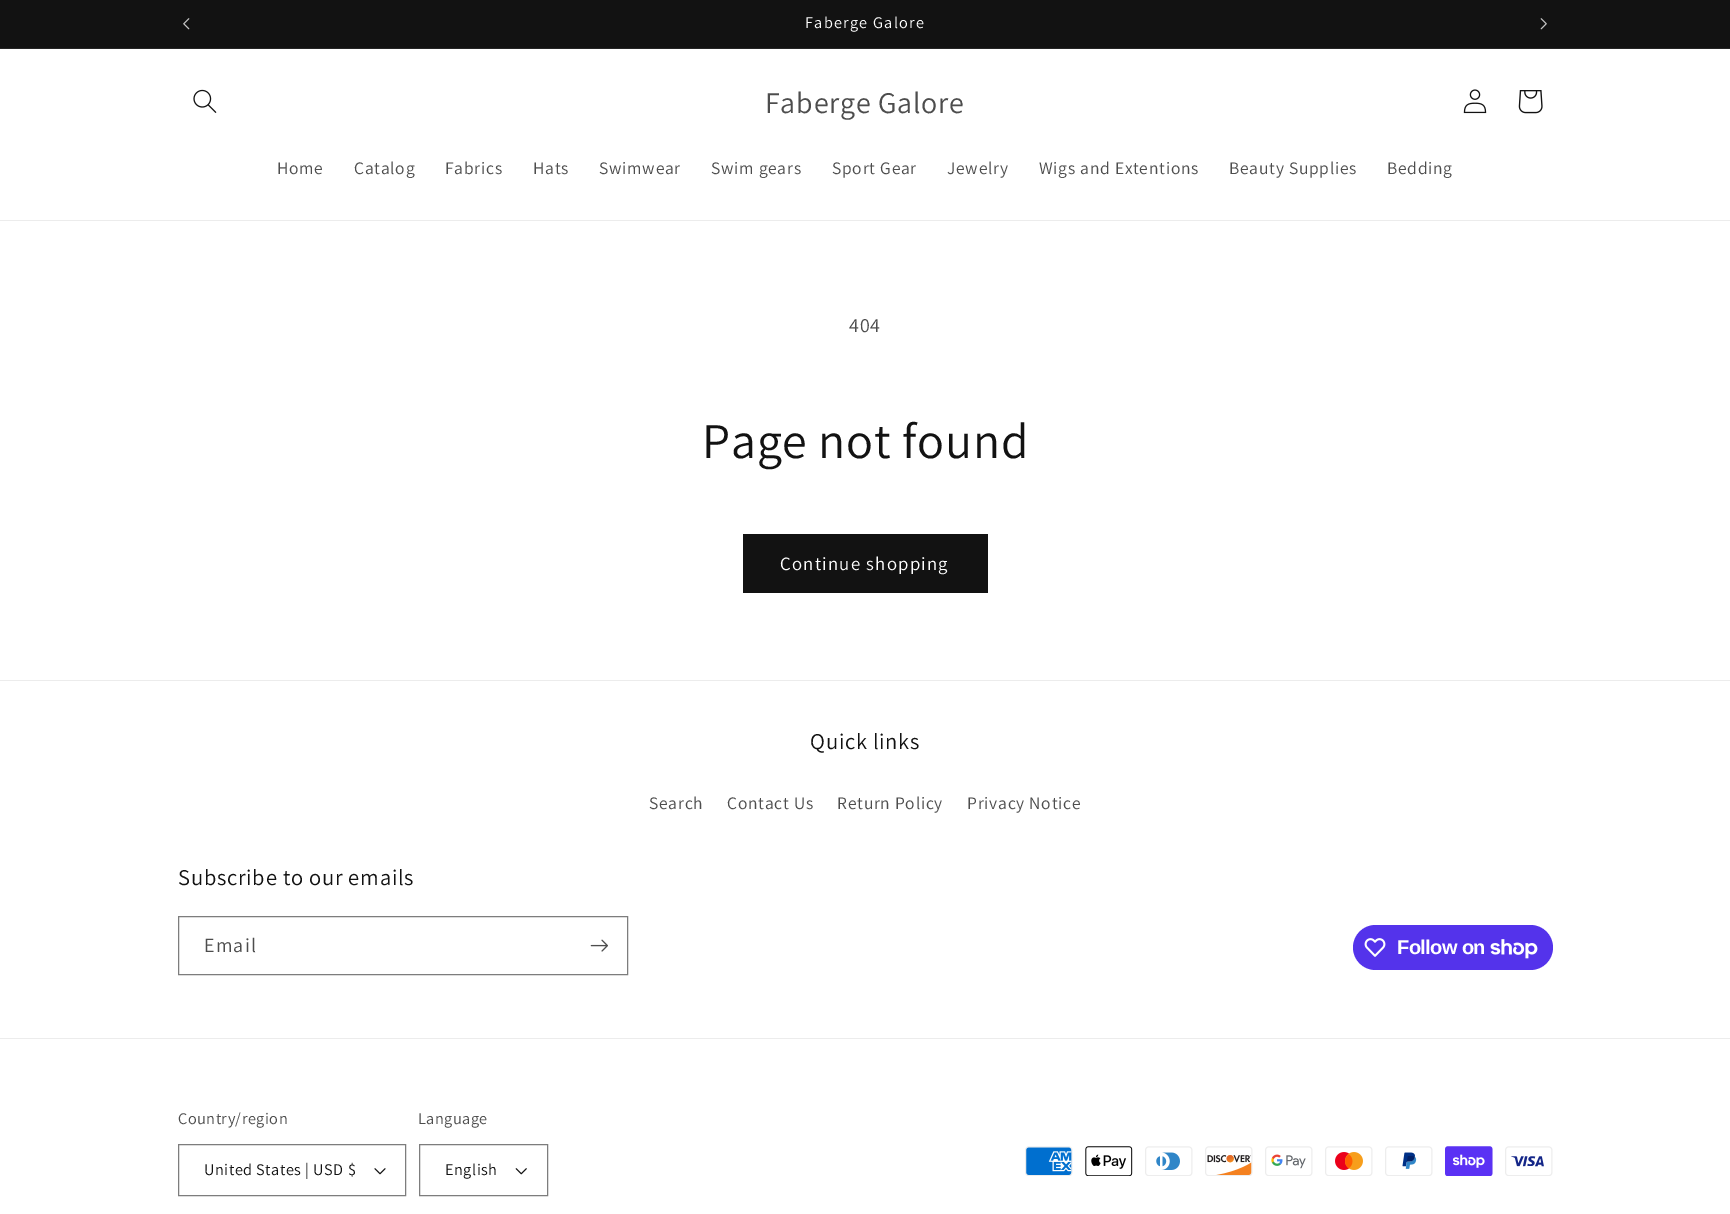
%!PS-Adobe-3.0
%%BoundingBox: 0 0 1730 1214
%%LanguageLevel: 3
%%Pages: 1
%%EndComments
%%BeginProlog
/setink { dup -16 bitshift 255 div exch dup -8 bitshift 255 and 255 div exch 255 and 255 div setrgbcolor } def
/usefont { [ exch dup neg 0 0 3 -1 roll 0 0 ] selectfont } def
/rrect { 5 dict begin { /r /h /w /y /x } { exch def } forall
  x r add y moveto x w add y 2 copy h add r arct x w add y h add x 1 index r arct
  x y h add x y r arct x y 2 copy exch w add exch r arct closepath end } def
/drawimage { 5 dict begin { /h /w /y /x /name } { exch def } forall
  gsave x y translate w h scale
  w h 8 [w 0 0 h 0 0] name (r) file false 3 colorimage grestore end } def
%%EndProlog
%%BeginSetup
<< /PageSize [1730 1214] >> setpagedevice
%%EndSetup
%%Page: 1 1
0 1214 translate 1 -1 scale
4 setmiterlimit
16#FFFFFF setink
0 0 1730 1214 rectfill
16#121212 setink
0 0 1730 48 rectfill
16#252525 setink
0 48 1730 1 rectfill
(img1.raw) 183 18 7 12 drawimage
/Assistant-Regular 16.25 usefont
16#FFFFFF setink
805 28 moveto 1.25 0 (Faberge Galore) ashow
(img2.raw) 1540 18 7 12 drawimage
16#ECECEC setink
0 220 1730 1 rectfill
(img3.raw) 193 89 24 24 drawimage
/Assistant-Regular 30 usefont
16#4D4D4D setink
765 113 moveto 0.75 0 (Faberge Galore) ashow
(img4.raw) 1463 89 24 25 drawimage
(img5.raw) 1518 90 25 24 drawimage
/Assistant-Regular 17.5 usefont
277 174 moveto 0.75 0 (Home) ashow
354 174 moveto 0.75 0 (Catalog) ashow
445 174 moveto 0.75 0 (Fabrics) ashow
533 174 moveto 0.75 0 (Hats) ashow
599 174 moveto 0.75 0 (Swimwear) ashow
711 174 moveto 0.75 0 (Swim gears) ashow
832 174 moveto 0.75 0 (Sport Gear) ashow
947 174 moveto 0.75 0 (Jewelry) ashow
1039 174 moveto 0.75 0 (Wigs and Extentions) ashow
1229 174 moveto 0.75 0 (Beauty Supplies) ashow
1387 174 moveto 0.75 0 (Bedding) ashow
/Assistant-Regular 20 usefont
849 332 moveto 0.75 0 (404) ashow
/Assistant-Regular 50 usefont
16#121212 setink
702 458 moveto 0.75 0 (Page not found) ashow
743 534 245 59 rectfill
/Assistant-Regular 18.75 usefont
16#FFFFFF setink
780 570 moveto 1.25 0 (Continue shopping) ashow
16#ECECEC setink
0 680 1730 1 rectfill
/Assistant-Regular 22.5 usefont
16#121212 setink
810 749 moveto 0.75 0 (Quick links) ashow
/Assistant-Regular 17.5 usefont
16#4D4D4D setink
649 809 moveto 0.75 0 (Search) ashow
727 809 moveto 0.75 0 (Contact Us) ashow
837 809 moveto 0.75 0 (Return Policy) ashow
967 809 moveto 0.75 0 (Privacy Notice) ashow
/Assistant-Regular 22.5 usefont
16#121212 setink
178 885 moveto 0.75 0 (Subscribe to our emails) ashow
16#7D7D7D setink
178.5 916.5 449 58 rectstroke
/Assistant-Regular 20 usefont
16#4D4D4D setink
204 952 moveto 1.25 0 (Email) ashow
(img6.raw) 590 939 18 13 drawimage
16#5433EB setink
1353 925 200 45 22.5 rrect fill
(img7.raw) 1364 938 22 19 drawimage
/LiberationSans-Bold 20 usefont
16#FFFFFF setink
1397 954 moveto -0.6 0 (Follow on) ashow
(img8.raw) 1490 939 48 20 drawimage
16#ECECEC setink
0 1038 1730 1 rectfill
/Assistant-Regular 16.25 usefont
16#4D4D4D setink
178 1124 moveto 0.5 0 (Country/region) ashow
(img9.raw) 374 1168 12 7 drawimage
16#7D7D7D setink
178.5 1144.5 227 51 rectstroke
16#121212 setink
204 1175 moveto 0.5 0 (United States | USD $) ashow
16#4D4D4D setink
418 1124 moveto 0.5 0 (Language) ashow
(img10.raw) 515 1168 12 7 drawimage
16#7D7D7D setink
419.5 1144.5 128 51 rectstroke
16#121212 setink
445 1175 moveto 0.5 0 (English) ashow
(img11.raw) 1025 1146 48 30 drawimage
(img12.raw) 1085 1146 48 30 drawimage
(img13.raw) 1145 1146 48 30 drawimage
(img14.raw) 1205 1146 48 30 drawimage
(img15.raw) 1265 1146 48 30 drawimage
(img16.raw) 1325 1146 48 30 drawimage
(img17.raw) 1385 1146 48 30 drawimage
(img18.raw) 1445 1146 48 30 drawimage
(img19.raw) 1505 1146 48 30 drawimage
showpage
%%EOF
